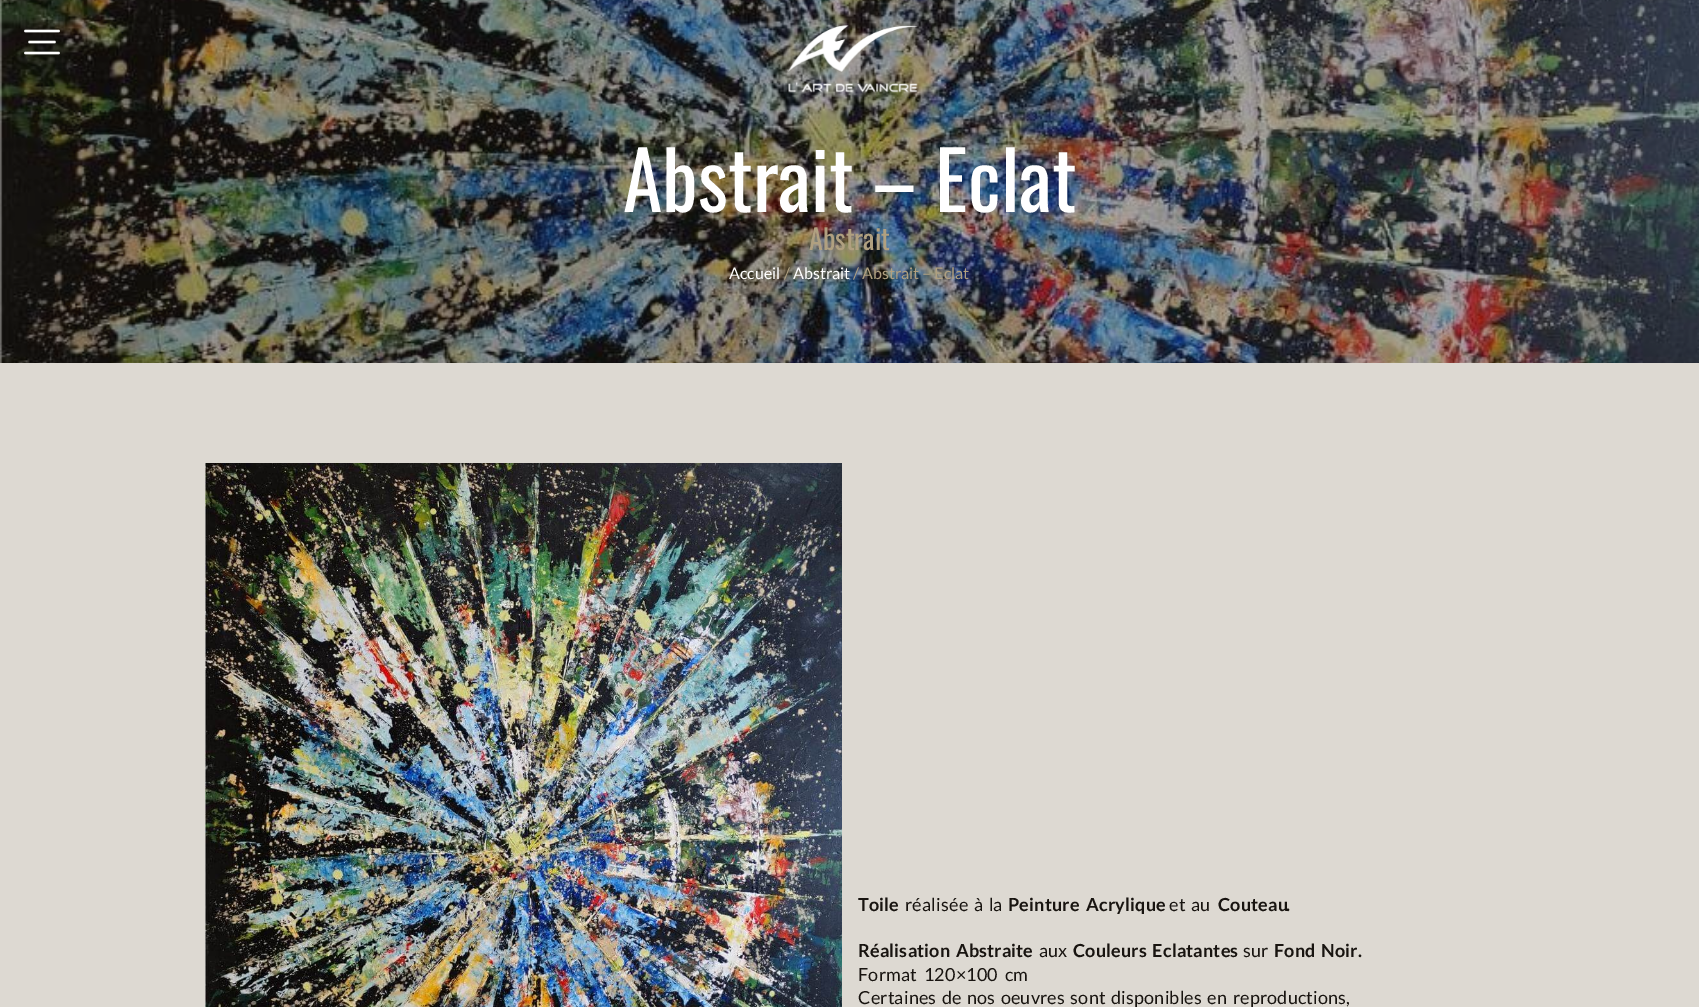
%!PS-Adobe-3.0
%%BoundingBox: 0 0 1699 1007
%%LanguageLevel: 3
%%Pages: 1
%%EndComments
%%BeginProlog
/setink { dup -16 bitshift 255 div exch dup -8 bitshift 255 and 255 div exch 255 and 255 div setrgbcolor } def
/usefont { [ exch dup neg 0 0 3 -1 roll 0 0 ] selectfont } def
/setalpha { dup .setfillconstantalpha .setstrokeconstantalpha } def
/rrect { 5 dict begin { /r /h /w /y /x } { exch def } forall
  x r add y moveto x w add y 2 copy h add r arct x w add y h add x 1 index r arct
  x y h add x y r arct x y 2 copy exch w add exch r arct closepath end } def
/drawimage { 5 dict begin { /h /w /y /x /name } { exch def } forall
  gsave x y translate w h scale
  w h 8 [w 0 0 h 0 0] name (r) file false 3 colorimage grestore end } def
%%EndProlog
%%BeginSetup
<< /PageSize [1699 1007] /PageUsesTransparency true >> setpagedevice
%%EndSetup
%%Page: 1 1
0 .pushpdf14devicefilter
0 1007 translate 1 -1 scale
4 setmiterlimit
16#DDD9D2 setink
0 0 1699 1007 rectfill
(img3.raw) 0 0 1699 363 drawimage
0.17 setalpha
16#181410 setink
20 20 44 44 3 rrect fill
1 setalpha
(img1.raw) 24 29 36 26 drawimage
(img2.raw) 788 25 130 68 drawimage
/Oswald-Regular 80 usefont
16#FFFFFF setink
623 212 moveto (Abstrait – Eclat) show
/Oswald-Regular 28 usefont
16#B0A080 setink
809 250 moveto (Abstrait) show
/Lato-Regular 16 usefont
16#FFFFFF setink
729 279 moveto (Accueil) show
16#B0A080 setink
784 279 moveto (/) show
16#FFFFFF setink
793 279 moveto (Abstrait) show
16#B0A080 setink
853 279 moveto (/ Abstrait – Eclat) show
(img4.raw) 205 463 637 544 drawimage
/Lato-Bold 18 usefont
16#181410 setink
858 911 moveto 0.18 0 (Toile) ashow
/Lato-Regular 18 usefont
905 911 moveto 2 0 32 0.18 0 (réalisée à la) awidthshow
/Lato-Bold 18 usefont
1008 911 moveto 3 0 32 0.18 0 (Peinture Acrylique) awidthshow
/Lato-Regular 18 usefont
1169 911 moveto 0.18 0 (et) ashow
1191 911 moveto 0.18 0 (au) ashow
/Lato-Bold 18 usefont
1218 911 moveto 0.18 0 (Couteau) ashow
1286 911 moveto 0.18 0 (.) ashow
858 957 moveto 1.75 0 32 0.18 0 (Réalisation Abstraite) awidthshow
/Lato-Regular 18 usefont
1039 957 moveto 0.18 0 (aux) ashow
/Lato-Bold 18 usefont
1073 957 moveto 1.75 0 32 0.18 0 (Couleurs Eclatantes) awidthshow
/Lato-Regular 18 usefont
1243 957 moveto 0.18 0 (sur) ashow
/Lato-Bold 18 usefont
1274 957 moveto 1.75 0 32 0.18 0 (Fond Noir.) awidthshow
/Lato-Regular 18 usefont
858 981 moveto 3 0 32 0.18 0 (Format 120×100 cm) awidthshow
858 1004 moveto 1.75 0 32 0.18 0 (Certaines de nos oeuvres sont disponibles en reproductions,) awidthshow
.poppdf14devicefilter showpage
%%EOF
